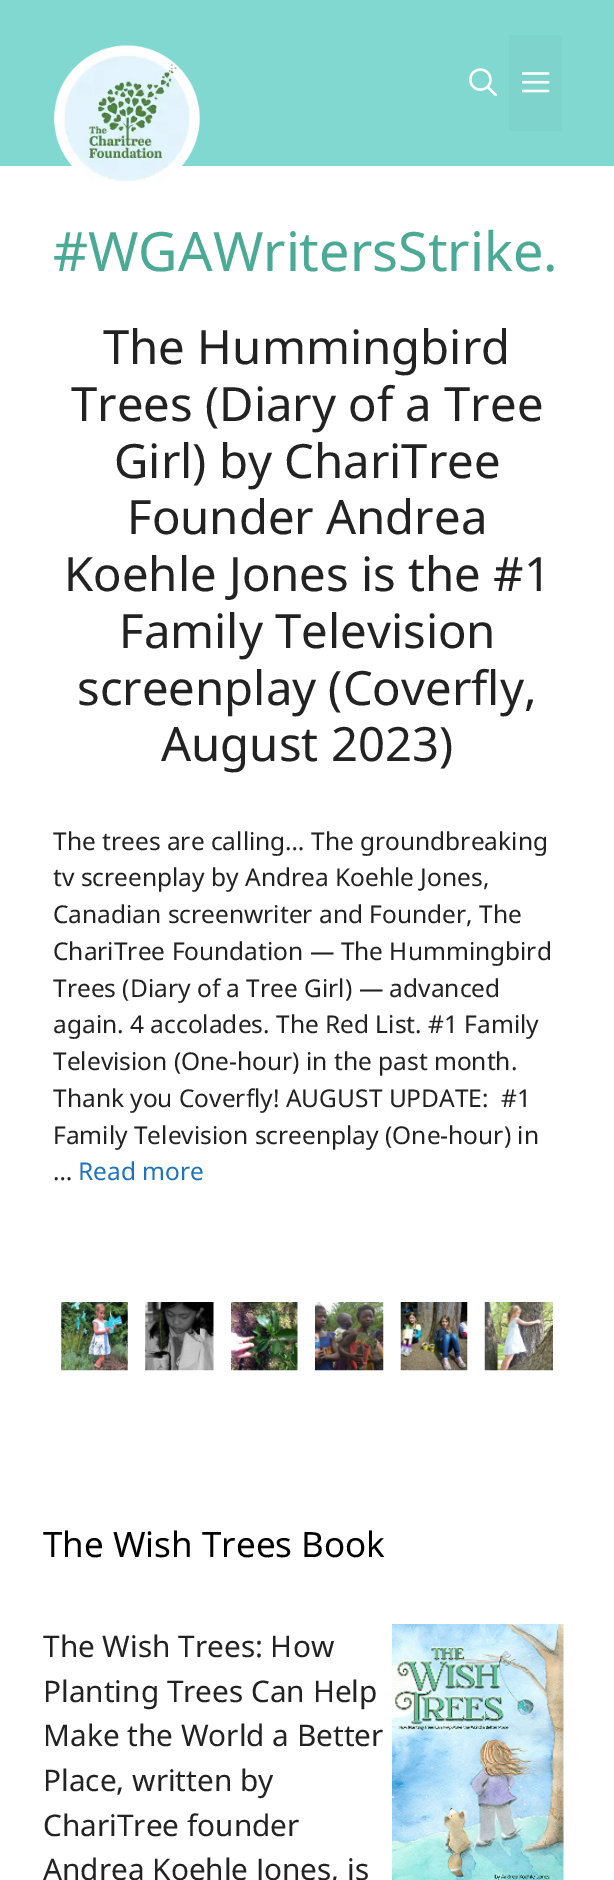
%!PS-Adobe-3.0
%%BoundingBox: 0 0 614 1880
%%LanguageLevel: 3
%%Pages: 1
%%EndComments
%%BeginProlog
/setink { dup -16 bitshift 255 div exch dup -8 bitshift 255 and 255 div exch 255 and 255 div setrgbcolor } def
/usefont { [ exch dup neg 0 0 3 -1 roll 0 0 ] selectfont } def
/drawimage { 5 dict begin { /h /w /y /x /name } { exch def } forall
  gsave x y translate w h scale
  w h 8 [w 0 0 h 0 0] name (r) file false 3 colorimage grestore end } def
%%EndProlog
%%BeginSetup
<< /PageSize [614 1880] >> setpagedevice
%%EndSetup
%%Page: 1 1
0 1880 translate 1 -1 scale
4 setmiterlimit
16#FFFFFF setink
0 0 614 1880 rectfill
16#81D8D0 setink
0 0 614 166 rectfill
(img1.raw) 54 45 146 140 drawimage
(img2.raw) 469 68 28 28 drawimage
16#7ED4CC setink
509 35 53 96 rectfill
(img3.raw) 522 72 28 21 drawimage
/NotoSans-Regular 54.25 usefont
16#4BAA95 setink
53 271 moveto (#WGAWritersStrike.) show
/NotoSans-Regular 47.25 usefont
16#222222 setink
[
    [(The Hummingbird) 103 364]
    [(Trees \(Diary of a Tree) 71 421]
    [(Girl\) by ChariTree) 114 478]
    [(Founder Andrea) 127 534]
    [(Koehle Jones is the #1) 64 591]
    [(Family Television) 119 648]
    [(screenplay \(Coverfly,) 77 705]
    [(August 2023\)) 161 761]
] { aload pop moveto show } forall
/NotoSans-Regular 24.5 usefont
[
    [(The trees are calling… The groundbreaking) 53 850]
    [(tv screenplay by Andrea Koehle Jones,) 53 886]
    [(Canadian screenwriter and Founder, The) 53 923]
    [(ChariTree Foundation — The Hummingbird) 53 960]
    [(Trees \(Diary of a Tree Girl\) — advanced) 53 997]
    [(again. 4 accolades. The Red List. #1 Family) 53 1033]
    [(Television \(One-hour\) in the past month.) 53 1070]
    [(Thank you Coverfly! AUGUST UPDATE:  #1) 53 1107]
    [(Family Television screenplay \(One-hour\) in) 53 1144]
    [(…) 53 1180]
] { aload pop moveto show } forall
16#1E73BE setink
78 1180 moveto (Read more) show
(img4.raw) 61 1302 67 69 drawimage
(img5.raw) 145 1302 69 69 drawimage
(img6.raw) 231 1302 67 69 drawimage
(img7.raw) 315 1302 69 69 drawimage
(img8.raw) 400 1302 68 69 drawimage
(img9.raw) 484 1302 69 69 drawimage
/NotoSans-Regular 35 usefont
16#000000 setink
43 1557 moveto (The Wish Trees Book) show
/NotoSans-Regular 29.75 usefont
16#222222 setink
43 1657 moveto (The Wish Trees: How) show
(img10.raw) 392 1624 172 256 drawimage
[
    [(Planting Trees Can Help) 43 1702]
    [(Make the World a Better) 43 1746]
    [(Place, written by) 43 1791]
    [(ChariTree founder) 43 1836]
    [(Andrea Koehle Jones, is) 43 1880]
] { aload pop moveto show } forall
showpage
%%EOF
